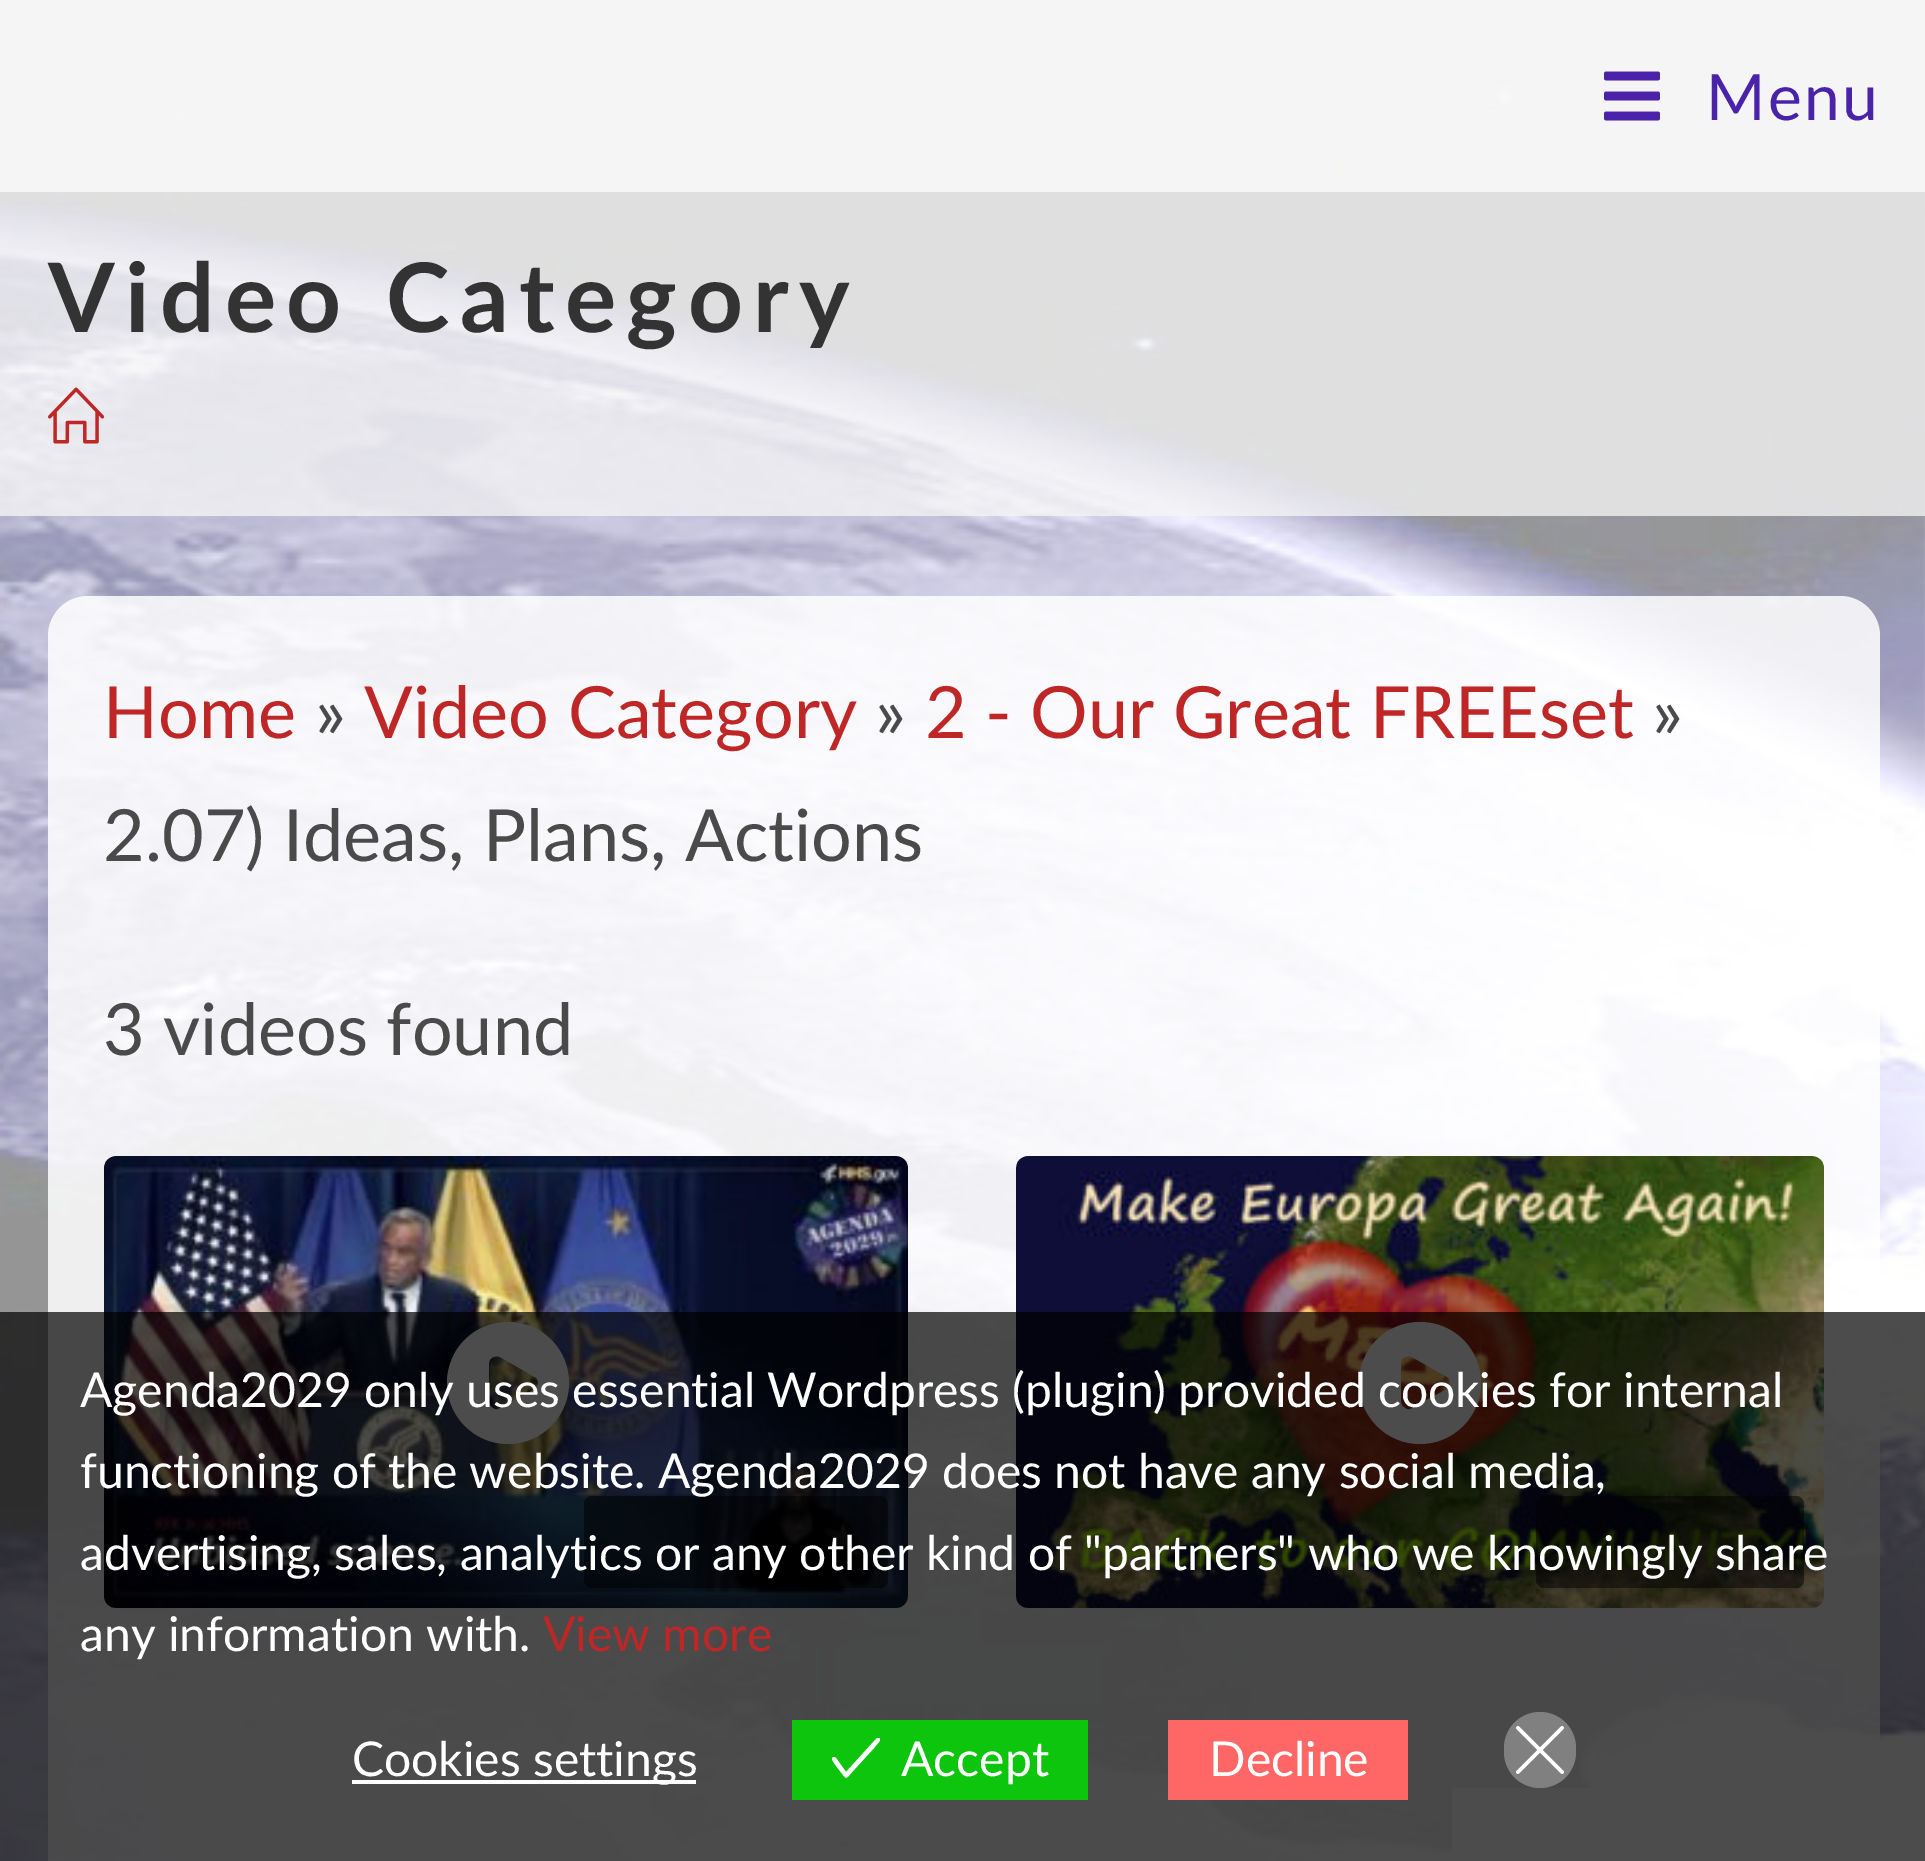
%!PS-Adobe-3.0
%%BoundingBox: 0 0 1925 1861
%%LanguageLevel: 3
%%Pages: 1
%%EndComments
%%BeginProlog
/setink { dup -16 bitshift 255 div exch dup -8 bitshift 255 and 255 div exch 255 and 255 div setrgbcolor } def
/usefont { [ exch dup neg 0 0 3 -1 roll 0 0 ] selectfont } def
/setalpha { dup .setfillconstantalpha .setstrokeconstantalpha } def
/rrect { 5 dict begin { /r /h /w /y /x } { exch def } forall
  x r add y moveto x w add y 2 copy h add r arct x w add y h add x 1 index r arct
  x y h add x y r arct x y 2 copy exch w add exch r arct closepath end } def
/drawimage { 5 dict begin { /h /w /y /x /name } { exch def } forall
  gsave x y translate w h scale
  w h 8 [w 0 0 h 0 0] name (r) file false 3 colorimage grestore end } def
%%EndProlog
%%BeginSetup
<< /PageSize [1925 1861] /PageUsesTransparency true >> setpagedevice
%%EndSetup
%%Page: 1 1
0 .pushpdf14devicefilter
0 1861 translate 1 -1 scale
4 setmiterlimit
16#FFFFFF setink
0 0 1925 1861 rectfill
(img1.raw) 0 0 1925 1861 drawimage
0.9 setalpha
0 0 1925 192 rectfill
1 setalpha
(img2.raw) 1604 71 56 50 drawimage
/Lato-Regular 64 usefont
16#4A23AA setink
1706 120 moveto 2.5 0 (Menu) ashow
0.77 setalpha
16#F5F5F5 setink
0 192 1925 324 rectfill
/Lato-Bold 96 usefont
1 setalpha
16#333333 setink
48 332 moveto 10.4 0 (Video Category) ashow
(img3.raw) 48 387 57 57 drawimage
0.85 setalpha
16#FFFFFF setink
48 596 1832 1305 40 rrect fill
/Lato-Regular 72 usefont
1 setalpha
16#BF2626 setink
103 738 moveto (Home) show
16#4A4A4A setink
315 738 moveto (») show
16#BF2626 setink
364 738 moveto (Video Category) show
16#4A4A4A setink
875 738 moveto (») show
16#BF2626 setink
925 738 moveto (2 - Our Great FREEset) show
16#4A4A4A setink
[
    [(») 1652 738]
    [(2.07\) Ideas, Plans, Actions) 103 861]
    [(3 videos found) 103 1055]
] { aload pop moveto show } forall
(img4.raw) 104 1156 804 452 drawimage
16#FFFFFF setink
447 1383 moveto 447 1349 474 1322 508 1322 curveto 542 1322 569 1349 569 1383 curveto 569 1416 542 1444 508 1444 curveto 474 1444 447 1416 447 1383 curveto closepath 535 1377 moveto 537 1378 538 1380 538 1383 curveto 538 1385 537 1388 535 1389 curveto 500 1408 lineto 498 1410 495 1410 493 1408 curveto 491 1407 489 1405 489 1402 curveto 489 1363 lineto 489 1358 495 1355 500 1357 curveto closepath eofill
0.5 setalpha
16#000000 setink
584 1496 304 92 8 rrect fill
1 setalpha
(img5.raw) 1016 1156 808 452 drawimage
16#FFFFFF setink
1359 1383 moveto 1359 1349 1386 1322 1420 1322 curveto 1454 1322 1481 1349 1481 1383 curveto 1481 1416 1454 1444 1420 1444 curveto 1386 1444 1359 1416 1359 1383 curveto closepath 1447 1377 moveto 1449 1378 1450 1380 1450 1383 curveto 1450 1385 1449 1388 1447 1389 curveto 1412 1408 lineto 1410 1410 1407 1410 1405 1408 curveto 1403 1407 1401 1405 1401 1402 curveto 1401 1363 lineto 1401 1358 1407 1355 1412 1357 curveto closepath eofill
0.5 setalpha
16#000000 setink
1536 1496 268 92 8 rrect fill
1 setalpha
16#FFFFFF setink
1452 1788 179 73 rectfill
0.7 setalpha
16#000000 setink
0 1312 1925 549 rectfill
/Lato-Regular 48 usefont
1 setalpha
16#FFFFFF setink
[
    [(Agenda2029 only uses essential Wordpress \(plugin\) provided cookies for internal) 80 1407]
    [(functioning of the website. Agenda2029 does not have any social media,) 80 1488]
    [(advertising, sales, analytics or any other kind of "partners" who we knowingly share) 80 1570]
    [(any information with.) 80 1651]
] { aload pop moveto show } forall
16#BF2626 setink
543 1651 moveto (View more) show
16#FFFFFF setink
352 1780 344 4 rectfill
352 1776 moveto (Cookies settings) show
16#0EC50E setink
792 1720 296 80 rectfill
16#FFFFFF setink
901 1776 moveto (Accept) show
876 1739 moveto 877 1738 878 1738 879 1738 curveto 882 1740 877 1744 874 1748 curveto 853 1771 lineto 845 1780 847 1780 840 1771 curveto 836 1766 lineto 836 1765 830 1759 833 1757 curveto 834 1757 835 1757 836 1758 curveto 846 1772 lineto closepath fill
16#FF6666 setink
1168 1720 240 80 rectfill
16#FFFFFF setink
1209 1776 moveto (Decline) show
16#808080 setink
1504 1712 72 76 36 rrect fill
(img6.raw) 1516 1726 48 48 drawimage
.poppdf14devicefilter showpage
%%EOF
